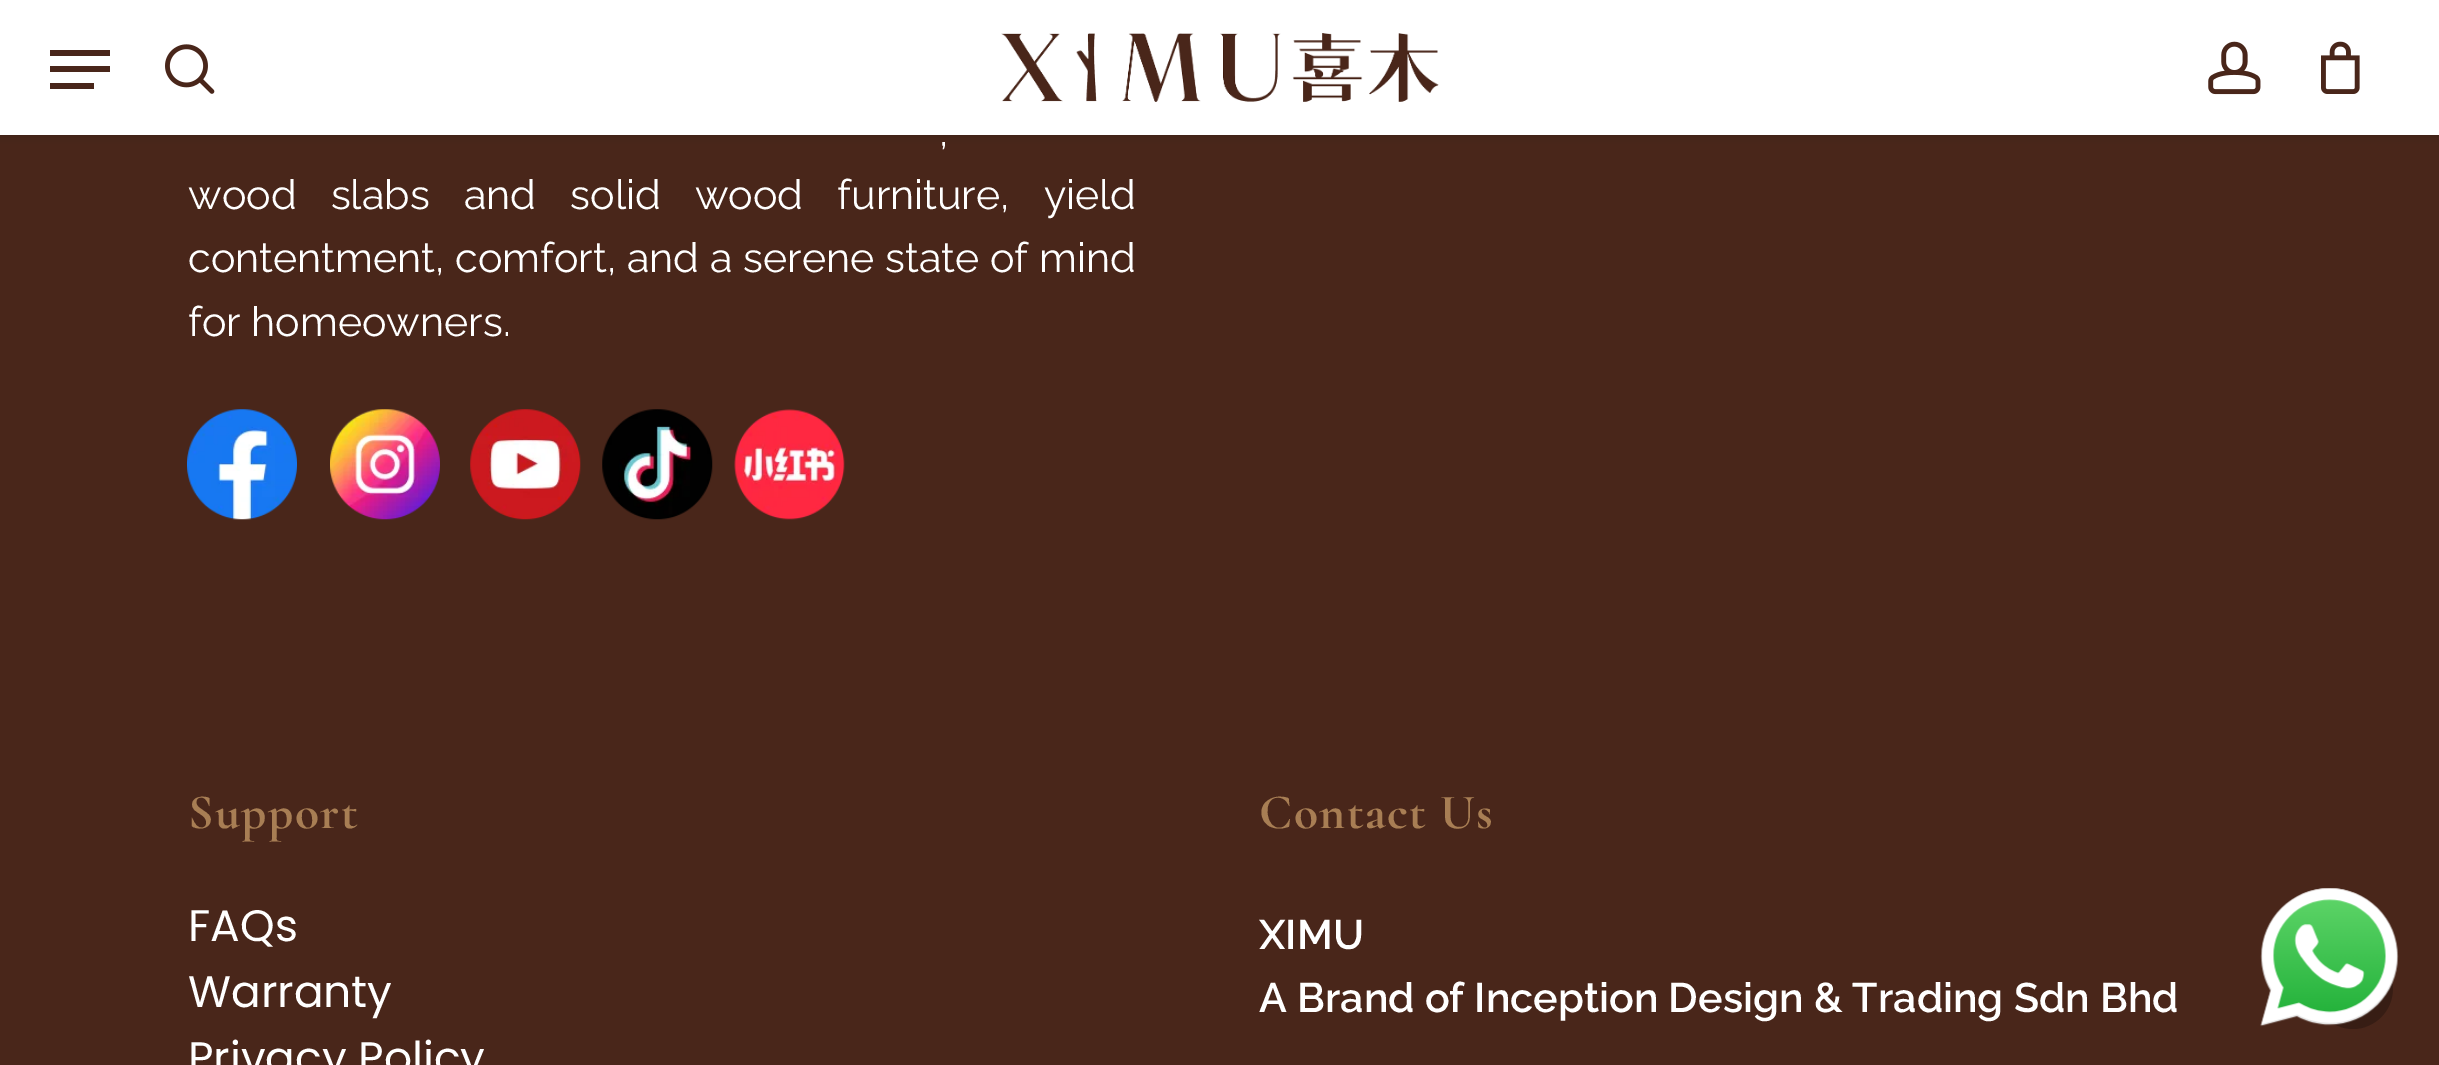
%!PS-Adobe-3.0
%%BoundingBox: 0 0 2439 1065
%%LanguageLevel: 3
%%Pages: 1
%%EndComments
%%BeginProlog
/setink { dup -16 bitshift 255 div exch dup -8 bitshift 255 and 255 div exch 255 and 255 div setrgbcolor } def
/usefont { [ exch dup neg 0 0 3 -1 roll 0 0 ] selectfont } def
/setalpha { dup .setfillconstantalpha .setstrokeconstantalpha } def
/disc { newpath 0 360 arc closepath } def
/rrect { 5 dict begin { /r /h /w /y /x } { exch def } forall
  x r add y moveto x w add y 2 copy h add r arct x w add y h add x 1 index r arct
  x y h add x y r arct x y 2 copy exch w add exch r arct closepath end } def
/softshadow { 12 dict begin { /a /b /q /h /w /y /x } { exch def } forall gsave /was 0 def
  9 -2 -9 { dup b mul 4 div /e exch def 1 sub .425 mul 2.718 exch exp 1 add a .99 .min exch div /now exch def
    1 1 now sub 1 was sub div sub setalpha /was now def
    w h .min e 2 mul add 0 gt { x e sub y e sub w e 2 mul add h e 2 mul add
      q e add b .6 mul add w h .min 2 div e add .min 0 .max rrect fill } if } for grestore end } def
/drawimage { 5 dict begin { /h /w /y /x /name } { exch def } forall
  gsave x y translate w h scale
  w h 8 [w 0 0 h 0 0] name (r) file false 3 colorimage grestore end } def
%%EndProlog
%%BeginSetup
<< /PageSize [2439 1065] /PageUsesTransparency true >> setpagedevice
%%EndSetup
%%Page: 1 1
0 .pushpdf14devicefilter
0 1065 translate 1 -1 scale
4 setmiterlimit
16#49261A setink
0 0 2439 1065 rectfill
16#000000 setink
0 0 2439 135 0 4 0.22 softshadow
16#FFFFFF setink
0 0 2439 135 rectfill
(img1.raw) 1001 33 438 69 drawimage
[
    [50 50 60 6 16#49261A]
    [50 83 44 6 16#49261A]
    [50 66 60 6 16#49261A]
] { aload pop setink rectfill } forall
(img2.raw) 165 44 50 50 drawimage
(img3.raw) 2208 41 53 54 drawimage
(img4.raw) 2321 41 39 53 drawimage
/Raleway-Regular 41.25 usefont
16#FFFFFF setink
939 146 moveto 16 0 32 (,) widthshow
188 209 moveto 23.75 0 32 (wood slabs and solid wood furniture, yield) widthshow
188 272 moveto 0.25 0 32 (contentment, comfort, and a serene state of mind) widthshow
188 336 moveto (for homeowners.) show
(img5.raw) 187 409 110 111 drawimage
(img6.raw) 330 409 110 111 drawimage
(img7.raw) 470 409 111 111 drawimage
(img8.raw) 602 409 111 111 drawimage
(img9.raw) 734 409 111 111 drawimage
/Cormorant-Bold 49.5 usefont
16#A87E54 setink
188 828 moveto 1.4 0 (Support) ashow
/Poppins-Regular 44 usefont
16#FFFFFF setink
[
    [(FAQs) 188 941]
    [(Warranty) 188 1007]
    [(Privacy Policy) 188 1073]
] { aload pop moveto show } forall
/Cormorant-Bold 49.5 usefont
16#A87E54 setink
1259 828 moveto 1.4 0 (Contact Us) ashow
/Raleway-SemiBold 41.25 usefont
16#FFFFFF setink
1259 949 moveto (XIMU) show
1259 1012 moveto (A Brand of Inception Design & Trading Sdn Bhd) show
16#371D14 setink
2353 989 40 disc fill
(img10.raw) 2260 888 139 139 drawimage
.poppdf14devicefilter showpage
%%EOF
